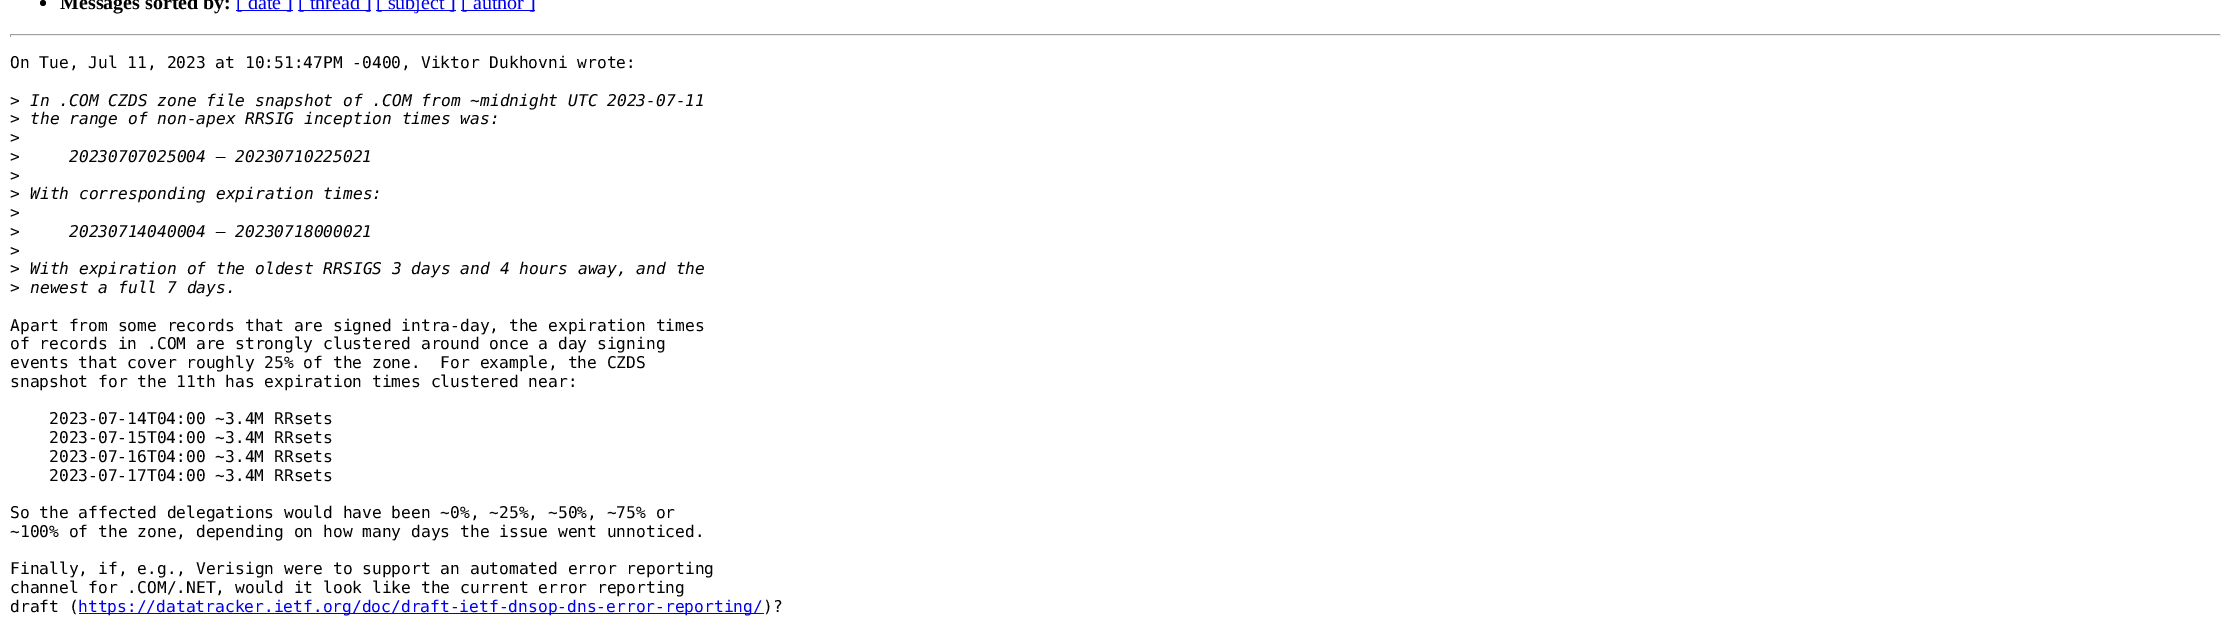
%!PS-Adobe-3.0
%%BoundingBox: 0 0 2231 624
%%LanguageLevel: 3
%%Pages: 1
%%EndComments
%%BeginProlog
/setink { dup -16 bitshift 255 div exch dup -8 bitshift 255 and 255 div exch 255 and 255 div setrgbcolor } def
/usefont { [ exch dup neg 0 0 3 -1 roll 0 0 ] selectfont } def
/disc { newpath 0 360 arc closepath } def
%%EndProlog
%%BeginSetup
<< /PageSize [2231 624] >> setpagedevice
%%EndSetup
%%Page: 1 1
0 624 translate 1 -1 scale
4 setmiterlimit
16#FFFFFF setink
0 0 2231 624 rectfill
16#000000 setink
43 3 3 disc fill
/LiberationSerif-Bold 20 usefont
60 9 moveto (Messages sorted by:) show
16#0000EE setink
236 10 57 1 rectfill
/LiberationSerif-Regular 20 usefont
236 9 moveto ([ date ]) show
298 10 73 1 rectfill
298 9 moveto ([ thread ]) show
376 10 80 1 rectfill
376 9 moveto ([ subject ]) show
461 10 74 1 rectfill
461 9 moveto ([ author ]) show
[
    [10 34 2211 1 16#9F9F9F]
    [2220 34 1 3 16#EEEEEE]
    [10 35 2211 1 16#EEEEEE]
    [10 34 1 3 16#9F9F9F]
] { aload pop setink rectfill } forall
/DejaVuSansMono-Regular 16.25 usefont
16#000000 setink
10 68 moveto (On Tue, Jul 11, 2023 at 10:51:47PM -0400, Viktor Dukhovni wrote:) show
10 106 moveto (>) show
/DejaVuSansMono-Italic 16.25 usefont
30 106 moveto (In .COM CZDS zone file snapshot of .COM from ~midnight UTC 2023-07-11) show
/DejaVuSansMono-Regular 16.25 usefont
10 124 moveto (>) show
/DejaVuSansMono-Italic 16.25 usefont
30 124 moveto (the range of non-apex RRSIG inception times was:) show
/DejaVuSansMono-Regular 16.25 usefont
10 143 moveto (>) show
10 162 moveto (>) show
/DejaVuSansMono-Italic 16.25 usefont
69 162 moveto (20230707025004 – 20230710225021) show
/DejaVuSansMono-Regular 16.25 usefont
10 181 moveto (>) show
10 199 moveto (>) show
/DejaVuSansMono-Italic 16.25 usefont
30 199 moveto (With corresponding expiration times:) show
/DejaVuSansMono-Regular 16.25 usefont
10 218 moveto (>) show
10 237 moveto (>) show
/DejaVuSansMono-Italic 16.25 usefont
69 237 moveto (20230714040004 – 20230718000021) show
/DejaVuSansMono-Regular 16.25 usefont
10 256 moveto (>) show
10 274 moveto (>) show
/DejaVuSansMono-Italic 16.25 usefont
30 274 moveto (With expiration of the oldest RRSIGS 3 days and 4 hours away, and the) show
/DejaVuSansMono-Regular 16.25 usefont
10 293 moveto (>) show
/DejaVuSansMono-Italic 16.25 usefont
30 293 moveto (newest a full 7 days.) show
/DejaVuSansMono-Regular 16.25 usefont
[
    [(Apart from some records that are signed intra-day, the expiration times) 10 331]
    [(of records in .COM are strongly clustered around once a day signing) 10 349]
    [(events that cover roughly 25% of the zone.  For example, the CZDS) 10 368]
    [(snapshot for the 11th has expiration times clustered near:) 10 387]
    [(2023-07-14T04:00 ~3.4M RRsets) 49 424]
    [(2023-07-15T04:00 ~3.4M RRsets) 49 443]
    [(2023-07-16T04:00 ~3.4M RRsets) 49 462]
    [(2023-07-17T04:00 ~3.4M RRsets) 49 481]
    [(So the affected delegations would have been ~0%, ~25%, ~50%, ~75% or) 10 518]
    [(~100% of the zone, depending on how many days the issue went unnoticed.) 10 537]
    [(Finally, if, e.g., Verisign were to support an automated error reporting) 10 574]
    [(channel for .COM/.NET, would it look like the current error reporting) 10 593]
    [(draft \() 10 612]
] { aload pop moveto show } forall
16#0000EE setink
79 613 685 1 rectfill
78 612 moveto (https://datatracker.ietf.org/doc/draft-ietf-dnsop-dns-error-reporting/) show
16#000000 setink
763 612 moveto (\)?) show
showpage
%%EOF
